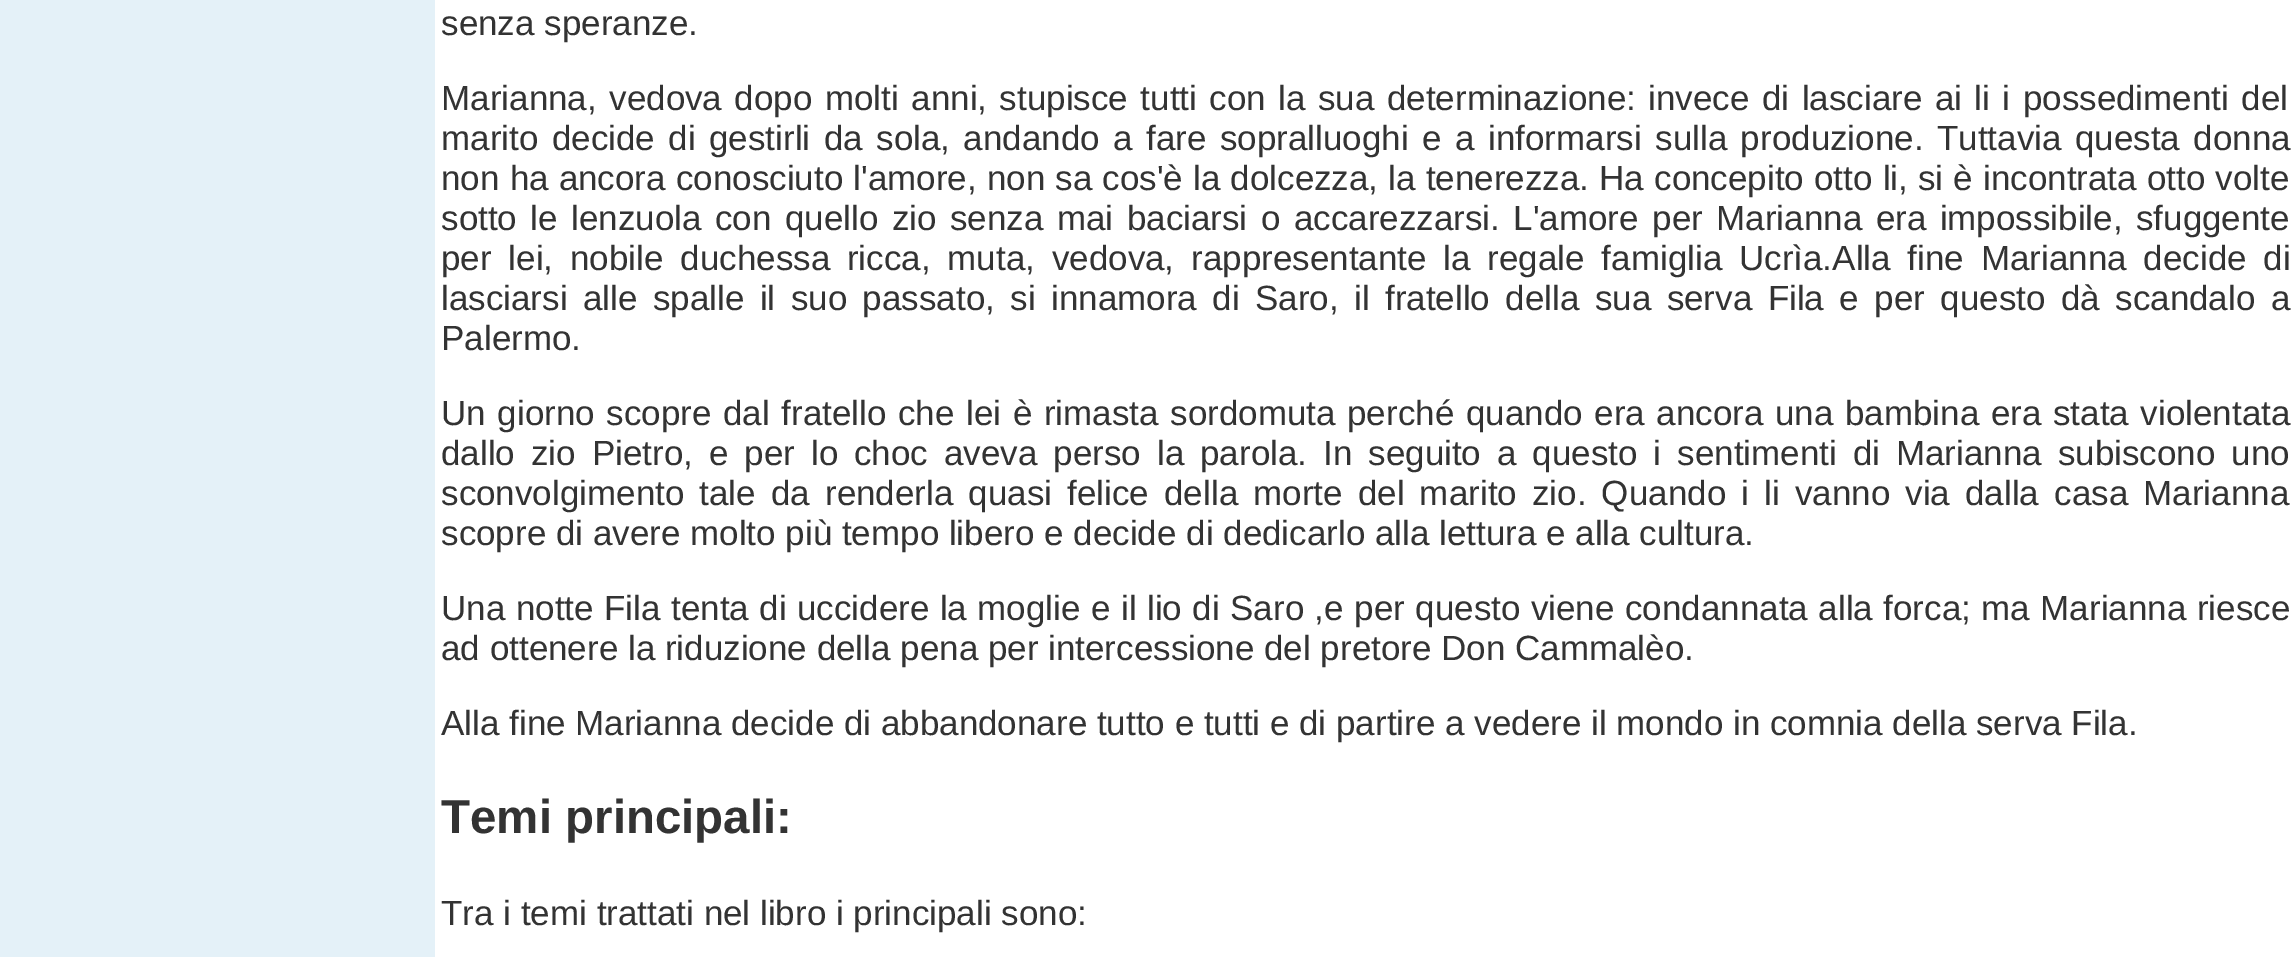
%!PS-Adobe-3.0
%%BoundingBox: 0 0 2295 957
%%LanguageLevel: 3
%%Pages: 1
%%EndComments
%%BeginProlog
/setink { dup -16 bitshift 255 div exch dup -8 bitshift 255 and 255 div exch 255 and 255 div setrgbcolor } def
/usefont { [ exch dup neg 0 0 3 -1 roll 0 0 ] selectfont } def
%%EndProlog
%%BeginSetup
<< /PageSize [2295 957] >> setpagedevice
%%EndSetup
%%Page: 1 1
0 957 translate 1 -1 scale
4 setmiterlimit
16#E4F1F8 setink
0 0 2295 957 rectfill
16#FFFFFF setink
435 0 1860 957 rectfill
/LiberationSans-Regular 35 usefont
16#333333 setink
441 35 moveto (senza speranze.) show
441 110 moveto 2.75 0 32 (Marianna, vedova dopo molti anni, stupisce tutti con la sua determinazione: invece di lasciare ai li i possedimenti del) widthshow
441 150 moveto 3.75 0 32 (marito decide di gestirli da sola, andando a fare sopralluoghi e a informarsi sulla produzione. Tuttavia questa donna) widthshow
441 190 moveto 0.4 0 32 (non ha ancora conosciuto l'amore, non sa cos'è la dolcezza, la tenerezza. Ha concepito otto li, si è incontrata otto volte) widthshow
441 230 moveto 3.75 0 32 (sotto le lenzuola con quello zio senza mai baciarsi o accarezzarsi. L'amore per Marianna era impossibile, sfuggente) widthshow
441 270 moveto 7.1 0 32 (per lei, nobile duchessa ricca, muta, vedova, rappresentante la regale famiglia Ucrìa.Alla fine Marianna decide di) widthshow
441 310 moveto 5.7 0 32 (lasciarsi alle spalle il suo passato, si innamora di Saro, il fratello della sua serva Fila e per questo dà scandalo a) widthshow
441 350 moveto (Palermo.) show
441 425 moveto 1.9 0 32 (Un giorno scopre dal fratello che lei è rimasta sordomuta perché quando era ancora una bambina era stata violentata) widthshow
441 465 moveto 6.25 0 32 (dallo zio Pietro, e per lo choc aveva perso la parola. In seguito a questo i sentimenti di Marianna subiscono uno) widthshow
441 505 moveto 5.4 0 32 (sconvolgimento tale da renderla quasi felice della morte del marito zio. Quando i li vanno via dalla casa Marianna) widthshow
441 545 moveto (scopre di avere molto più tempo libero e decide di dedicarlo alla lettura e alla cultura.) show
441 620 moveto 0.75 0 32 (Una notte Fila tenta di uccidere la moglie e il lio di Saro ,e per questo viene condannata alla forca; ma Marianna riesce) widthshow
441 660 moveto (ad ottenere la riduzione della pena per intercessione del pretore Don Cammalèo.) show
441 735 moveto (Alla fine Marianna decide di abbandonare tutto e tutti e di partire a vedere il mondo in comnia della serva Fila.) show
/LiberationSans-Bold 47.5 usefont
441 833 moveto (Temi principali:) show
/LiberationSans-Regular 35 usefont
441 925 moveto (Tra i temi trattati nel libro i principali sono:) show
showpage
%%EOF
